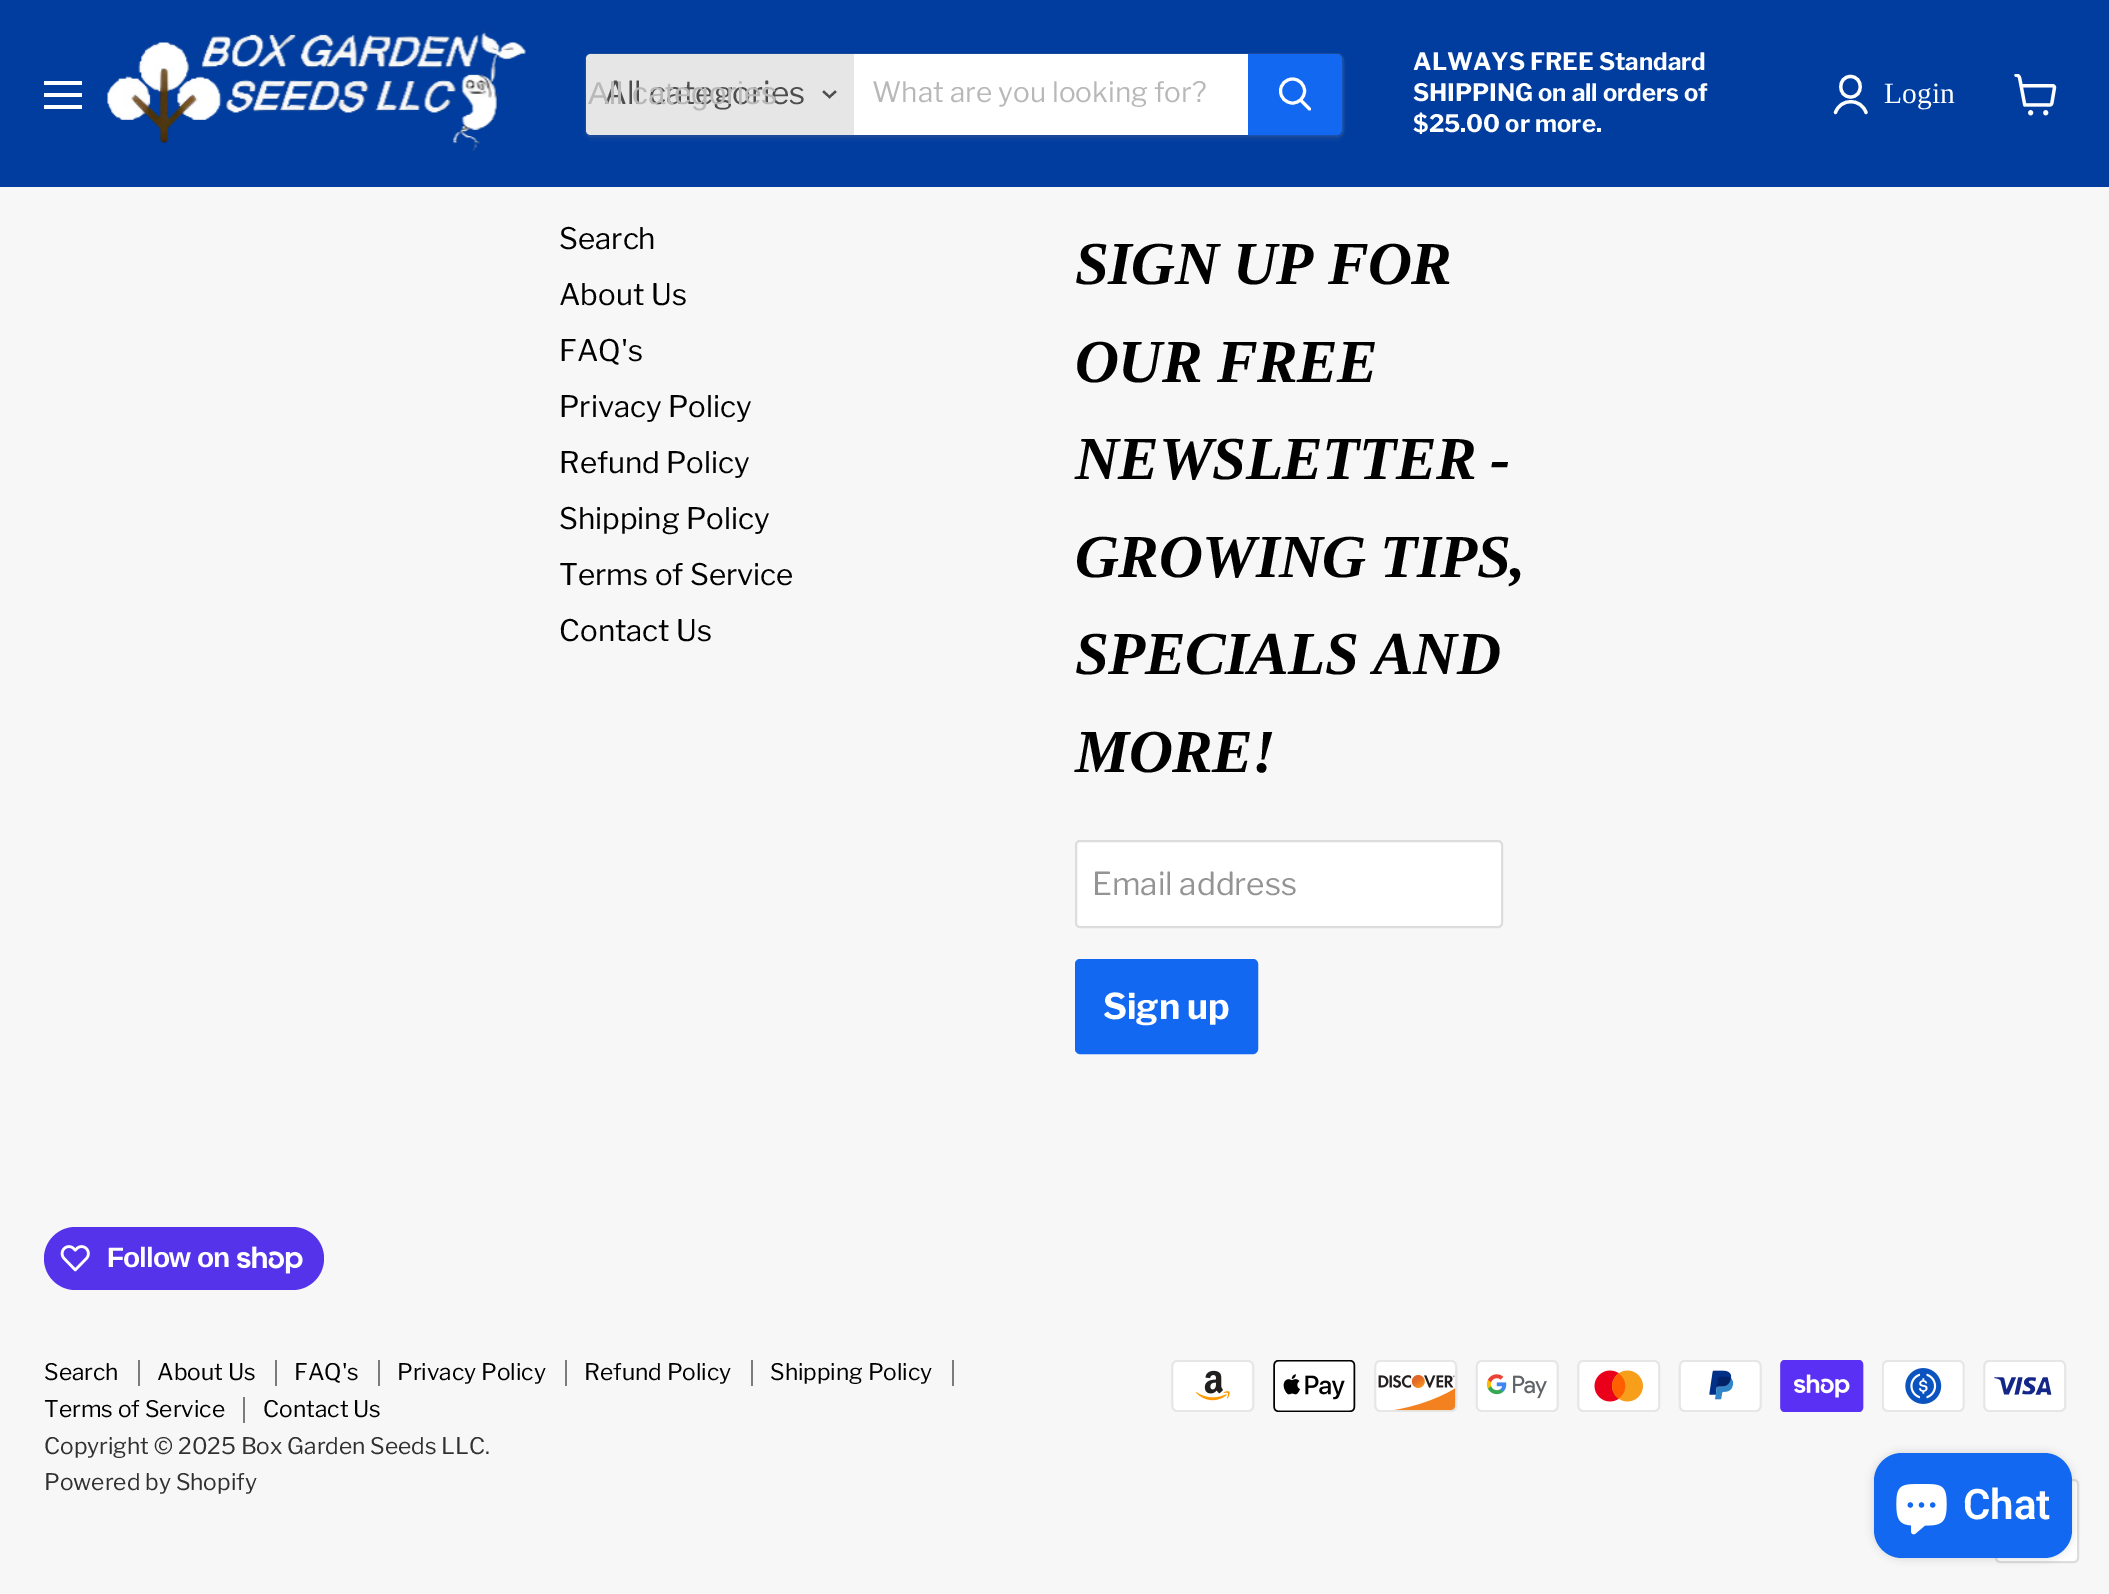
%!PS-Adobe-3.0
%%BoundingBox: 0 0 2109 1594
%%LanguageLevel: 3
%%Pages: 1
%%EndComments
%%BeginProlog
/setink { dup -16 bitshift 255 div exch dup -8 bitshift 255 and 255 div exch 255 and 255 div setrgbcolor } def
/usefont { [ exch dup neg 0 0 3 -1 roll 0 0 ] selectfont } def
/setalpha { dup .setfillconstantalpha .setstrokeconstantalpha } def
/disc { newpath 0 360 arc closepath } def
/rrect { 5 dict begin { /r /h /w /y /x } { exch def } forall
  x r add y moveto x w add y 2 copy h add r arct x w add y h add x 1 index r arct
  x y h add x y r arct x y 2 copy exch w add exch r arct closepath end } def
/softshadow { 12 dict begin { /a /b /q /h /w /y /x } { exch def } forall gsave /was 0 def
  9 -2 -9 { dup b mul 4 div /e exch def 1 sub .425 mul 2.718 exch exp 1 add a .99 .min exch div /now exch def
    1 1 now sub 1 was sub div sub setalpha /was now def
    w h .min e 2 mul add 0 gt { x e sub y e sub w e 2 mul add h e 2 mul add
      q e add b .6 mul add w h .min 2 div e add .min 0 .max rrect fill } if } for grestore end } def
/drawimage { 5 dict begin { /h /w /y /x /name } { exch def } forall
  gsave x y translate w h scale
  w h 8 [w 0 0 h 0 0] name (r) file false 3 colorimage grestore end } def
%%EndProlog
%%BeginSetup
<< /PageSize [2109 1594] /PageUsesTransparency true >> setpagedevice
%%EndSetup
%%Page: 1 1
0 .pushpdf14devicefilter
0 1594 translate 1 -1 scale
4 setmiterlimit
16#F7F7F7 setink
0 0 2109 1594 rectfill
[
    [0 0 2109 187 16#003D9F]
    [44 81 38 4 16#FFFFFF]
    [44 93 38 4 16#FFFFFF]
    [44 105 38 4 16#FFFFFF]
] { aload pop setink rectfill } forall
(img1.raw) 107 30 419 121 drawimage
gsave
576 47 moveto 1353 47 lineto 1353 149 lineto 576 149 lineto closepath 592 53 moveto 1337 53 lineto 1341 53 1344 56 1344 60 curveto 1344 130 lineto 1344 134 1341 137 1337 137 curveto 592 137 lineto 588 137 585 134 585 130 curveto 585 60 lineto 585 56 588 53 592 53 curveto closepath eoclip newpath
16#808080 setink
585 56 759 84 7 2.5 0.11 softshadow
grestore
0.2 setalpha
16#808080 setink
2 setlinewidth
586 54 757 82 6 rrect stroke
1 setalpha
16#E6E6E6 setink
591 54 moveto 854 54 lineto 854 135 lineto 591 135 lineto 588 135 586 133 586 130 curveto 586 59 lineto 586 56 588 54 591 54 curveto closepath fill
/LibreFranklin-Regular 31.5 usefont
16#4D4D4D setink
604 104 moveto (All categories) show
/LiberationSans-Regular 31.5 usefont
16#B8B8B8 setink
588 104 moveto (All categories) show
16#4D4D4D setink
2.2 setlinewidth
2 setlinecap
829.5 97 moveto 835 92 lineto 829.5 97 moveto 824 92 lineto stroke
16#FFFFFF setink
854 54 394 81 rectfill
/LibreFranklin-Regular 28 usefont
16#B8B8B8 setink
872 102 moveto (What are you looking for?) show
16#1268F1 setink
1249 55 moveto 1337 55 lineto 1339 55 1341 57 1341 59 curveto 1341 130 lineto 1341 132 1339 134 1337 134 curveto 1249 134 lineto closepath gsave fill grestore
2 setlinewidth
0 setlinecap
stroke
16#FFFFFF setink
3 setlinewidth
1 setlinecap
1309.5 109 moveto 1301 100.5 lineto stroke
0 setlinecap
1292.5 91 12 disc stroke
/LibreFranklin-Bold 24 usefont
[
    [(ALWAYS FREE Standard) 1413 70]
    [(SHIPPING on all orders of) 1413 101]
    [($25.00 or more.) 1413 132]
] { aload pop moveto show } forall
3.2 setlinewidth
1 setlinecap
1 setlinejoin
1850.5 97 moveto 1863.5 97 1863.5 76.5 1850.5 76.5 curveto 1837.5 76.5 1837.5 97 1850.5 97 curveto closepath 1866 112.5 moveto 1861 98 1840.5 98 1835.5 112.5 curveto stroke
/LiberationSerif-Regular 29.5 usefont
1884 103 moveto (Login) show
(img2.raw) 2014 74 43 42 drawimage
/LibreFranklin-Regular 29.5 usefont
16#000000 setink
[
    [(Search) 559 249]
    [(About Us) 559 305]
    [(FAQ's) 559 361]
    [(Privacy Policy) 559 417]
    [(Refund Policy) 559 473]
    [(Shipping Policy) 559 529]
    [(Terms of Service) 559 585]
    [(Contact Us) 559 641]
] { aload pop moveto show } forall
/LiberationSerif-BoldItalic 61 usefont
1075 284 moveto -0.6 0 (SIGN UP FOR) ashow
1075 382 moveto -0.6 0 (OUR FREE) ashow
1075 479 moveto -0.6 0 (NEWSLETTER -) ashow
1075 577 moveto -0.6 0 (GROWING TIPS,) ashow
1075 674 moveto -0.6 0 (SPECIALS AND) ashow
1075 772 moveto -0.6 0 (MORE!) ashow
16#FFFFFF setink
1076 841 426 86 4 rrect gsave fill grestore
16#DDDDDD setink
2 setlinewidth
0 setlinecap
0 setlinejoin
stroke
/LibreFranklin-Regular 31.5 usefont
16#949494 setink
1092 895 moveto (Email address) show
16#1268F1 setink
1076 960 181 93 4 rrect gsave fill grestore
stroke
/LibreFranklin-Bold 35.5 usefont
16#FFFFFF setink
1103 1019 moveto (Sign up) show
16#5433EB setink
44 1227 280 63 31.5 rrect fill
(img3.raw) 60 1245 30 27 drawimage
/LiberationSans-Bold 28 usefont
16#FFFFFF setink
107 1267 moveto -0.9 0 (Follow on) ashow
(img4.raw) 237 1246 66 28 drawimage
16#7C7C7C setink
138 1360 2 26 rectfill
/LibreFranklin-Regular 22.75 usefont
16#000000 setink
44 1380 moveto (Search) show
16#7C7C7C setink
275 1360 2 26 rectfill
16#000000 setink
157 1380 moveto (About Us) show
16#7C7C7C setink
378 1360 2 26 rectfill
16#000000 setink
294 1380 moveto (FAQ's) show
16#7C7C7C setink
565 1360 2 26 rectfill
16#000000 setink
397 1380 moveto (Privacy Policy) show
16#7C7C7C setink
751 1360 2 26 rectfill
16#000000 setink
584 1380 moveto (Refund Policy) show
16#7C7C7C setink
952 1360 2 26 rectfill
16#000000 setink
770 1380 moveto (Shipping Policy) show
16#7C7C7C setink
243 1397 2 26 rectfill
16#000000 setink
44 1417 moveto (Terms of Service) show
263 1417 moveto (Contact Us) show
16#313131 setink
44 1454 moveto (Copyright © 2025 Box Garden Seeds LLC.) show
44 1490 moveto (Powered by Shopify) show
(img5.raw) 1171 1360 84 52 drawimage
(img6.raw) 1273 1360 83 52 drawimage
(img7.raw) 1374 1360 84 52 drawimage
(img8.raw) 1475 1360 84 52 drawimage
(img9.raw) 1577 1360 84 52 drawimage
(img10.raw) 1678 1360 84 52 drawimage
(img11.raw) 1780 1360 84 52 drawimage
(img12.raw) 1882 1360 83 52 drawimage
(img13.raw) 1983 1360 84 52 drawimage
16#FFFFFF setink
1996 1480 82 82 4 rrect gsave fill grestore
16#DDDDDD setink
stroke
16#000000 setink
1874 1453 198 105 28 4.5 0.15 softshadow
16#1268F1 setink
1874 1453 198 105 28 rrect fill
(img14.raw) 1896 1484 51 51 drawimage
/Roboto-SemiBold 42 usefont
16#FFFFFF setink
1963 1519 moveto (Chat) show
.poppdf14devicefilter showpage
%%EOF
